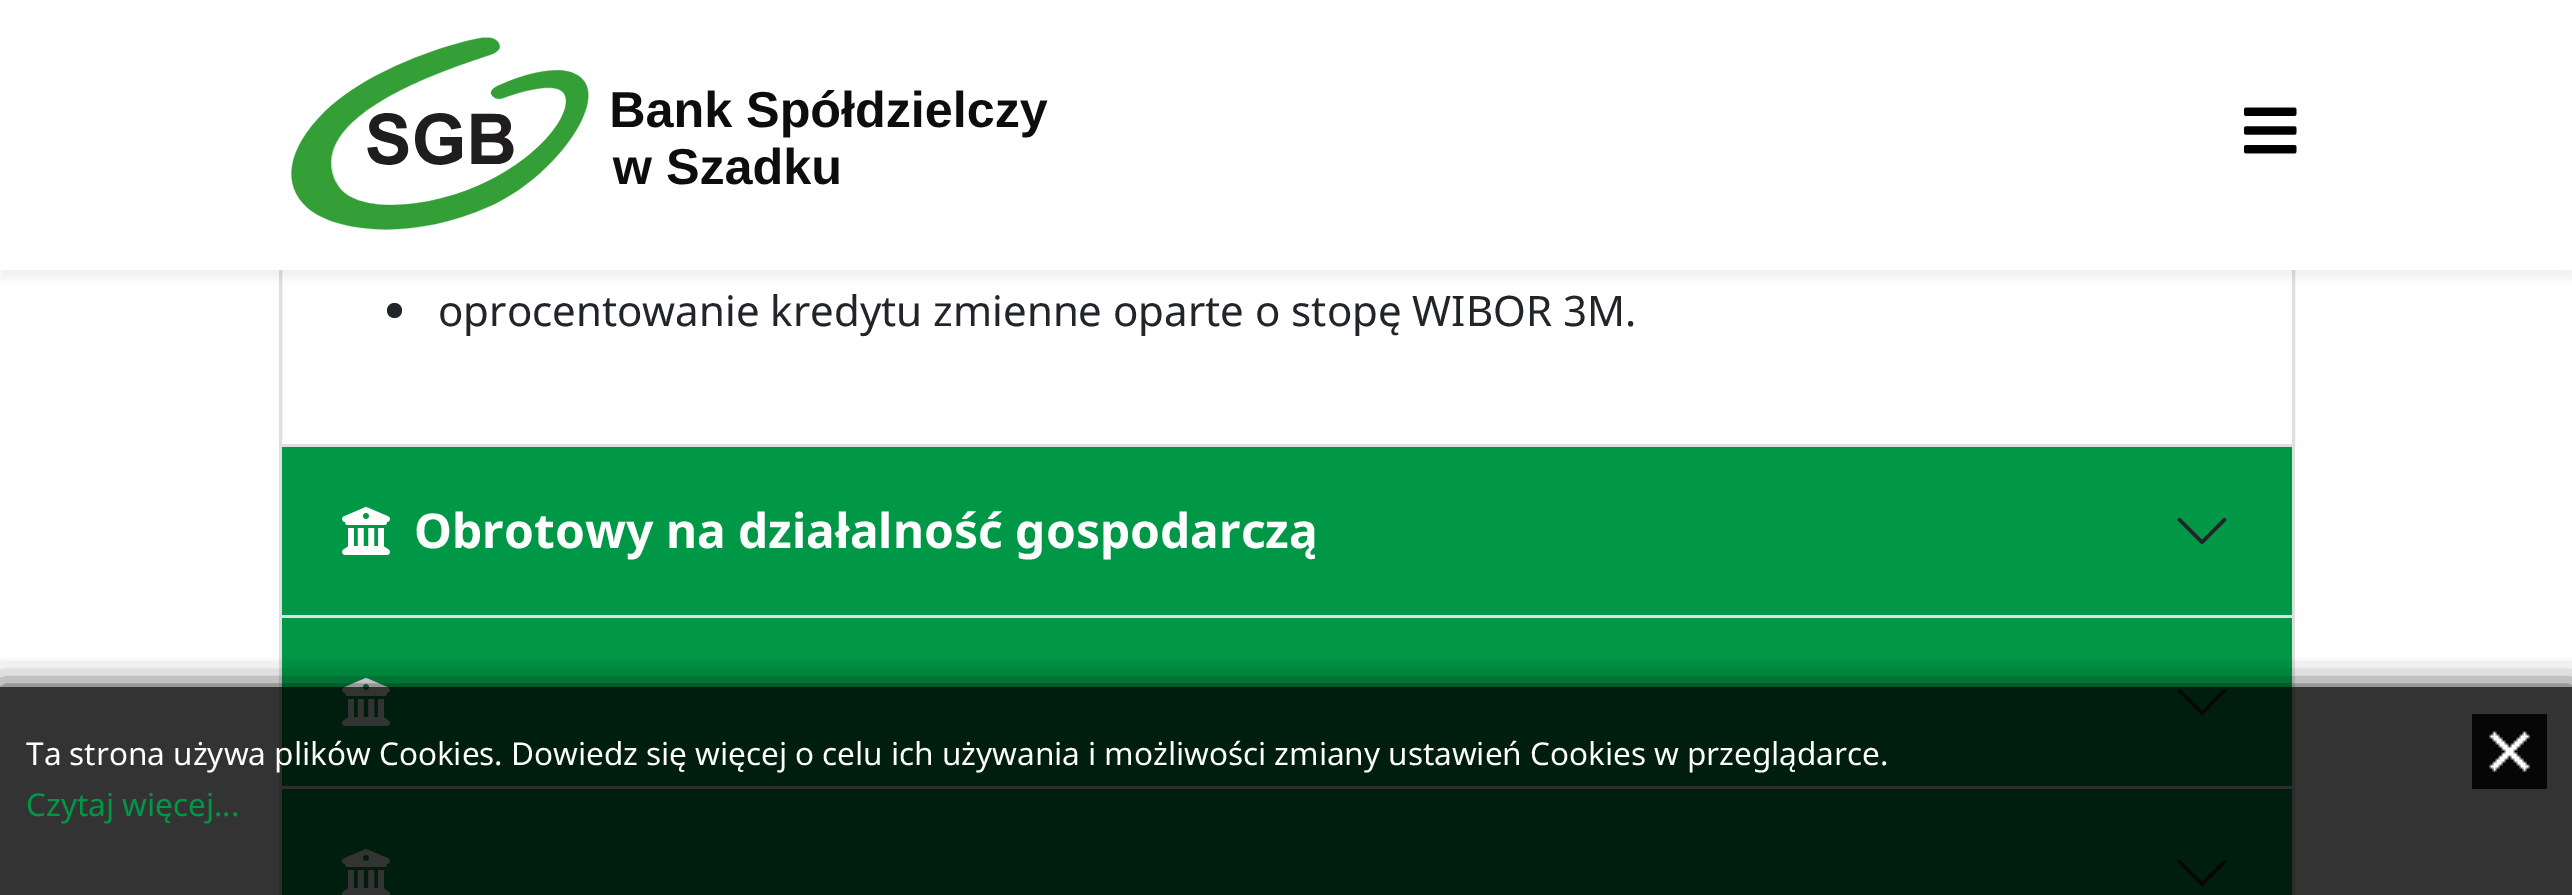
%!PS-Adobe-3.0
%%BoundingBox: 0 0 2572 895
%%LanguageLevel: 3
%%Pages: 1
%%EndComments
%%BeginProlog
/setink { dup -16 bitshift 255 div exch dup -8 bitshift 255 and 255 div exch 255 and 255 div setrgbcolor } def
/usefont { [ exch dup neg 0 0 3 -1 roll 0 0 ] selectfont } def
/setalpha { dup .setfillconstantalpha .setstrokeconstantalpha } def
/disc { newpath 0 360 arc closepath } def
/rrect { 5 dict begin { /r /h /w /y /x } { exch def } forall
  x r add y moveto x w add y 2 copy h add r arct x w add y h add x 1 index r arct
  x y h add x y r arct x y 2 copy exch w add exch r arct closepath end } def
/softshadow { 12 dict begin { /a /b /q /h /w /y /x } { exch def } forall gsave /was 0 def
  9 -2 -9 { dup b mul 4 div /e exch def 1 sub .425 mul 2.718 exch exp 1 add a .99 .min exch div /now exch def
    1 1 now sub 1 was sub div sub setalpha /was now def
    w h .min e 2 mul add 0 gt { x e sub y e sub w e 2 mul add h e 2 mul add
      q e add b .6 mul add w h .min 2 div e add .min 0 .max rrect fill } if } for grestore end } def
/drawimage { 5 dict begin { /h /w /y /x /name } { exch def } forall
  gsave x y translate w h scale
  w h 8 [w 0 0 h 0 0] name (r) file false 3 colorimage grestore end } def
%%EndProlog
%%BeginSetup
<< /PageSize [2572 895] /PageUsesTransparency true >> setpagedevice
%%EndSetup
%%Page: 1 1
0 .pushpdf14devicefilter
0 895 translate 1 -1 scale
4 setmiterlimit
16#FFFFFF setink
0 0 2572 895 rectfill
16#DFDFDF setink
3 setlinewidth
280.5 -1.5 2013 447 rectstroke
16#000000 setink
0 9 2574 270 0 4.5 0.05 softshadow
16#FFFFFF setink
0 0 2572 270 rectfill
(img1.raw) 291 37 757 193 drawimage
(img2.raw) 2244 107 53 47 drawimage
16#212529 setink
394.5 310.5 7.5 disc fill
/NotoSans-Regular 42 usefont
438 326 moveto (oprocentowanie kredytu zmienne oparte o stopę WIBOR 3M.) show
16#DFDFDF setink
2295 447 moveto 2295 618 lineto 2292 615 lineto 2292 447 lineto closepath fill
0.12 setalpha
16#000000 setink
2295 618 moveto 279 618 lineto 282 615 lineto 2292 615 lineto closepath fill
279 618 moveto 279 447 lineto 282 447 lineto 282 615 lineto closepath fill
1 setalpha
16#009846 setink
282 447 2010 168 rectfill
(img3.raw) 342 507 48 48 drawimage
/NotoSans-Bold 48 usefont
16#FFFFFF setink
414 548 moveto (Obrotowy na działalność gospodarczą) show
(img4.raw) 2177 517 50 28 drawimage
16#DFDFDF setink
2295 618 moveto 2295 789 lineto 2292 786 lineto 2292 618 lineto closepath fill
0.12 setalpha
16#000000 setink
2295 789 moveto 279 789 lineto 282 786 lineto 2292 786 lineto closepath fill
279 789 moveto 279 618 lineto 282 618 lineto 282 786 lineto closepath fill
1 setalpha
16#009846 setink
282 618 2010 168 rectfill
(img3.raw) 342 678 48 48 drawimage
(img4.raw) 2177 688 50 28 drawimage
16#DFDFDF setink
2295 789 moveto 2295 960 lineto 2292 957 lineto 2292 789 lineto closepath fill
279 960 moveto 279 789 lineto 282 789 lineto 282 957 lineto closepath fill
16#009846 setink
282 789 2010 106 rectfill
(img5.raw) 342 849 48 46 drawimage
(img4.raw) 2177 859 50 28 drawimage
gsave
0 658 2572 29 rectclip
16#000000 setink
0 687 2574 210 0 15 0.8 softshadow
grestore
0.8 setalpha
16#000000 setink
0 687 2572 208 rectfill
/NotoSans-Regular 31.5 usefont
1 setalpha
16#FFFFFF setink
26 765 moveto (Ta strona używa plików Cookies. Dowiedz się więcej o celu ich używania i możliwości zmiany ustawień Cookies w przeglądarce.) show
16#009846 setink
26 816 moveto (Czytaj więcej...) show
16#060606 setink
2472 714 75 75 rectfill
(img6.raw) 2489 731 41 41 drawimage
.poppdf14devicefilter showpage
%%EOF
